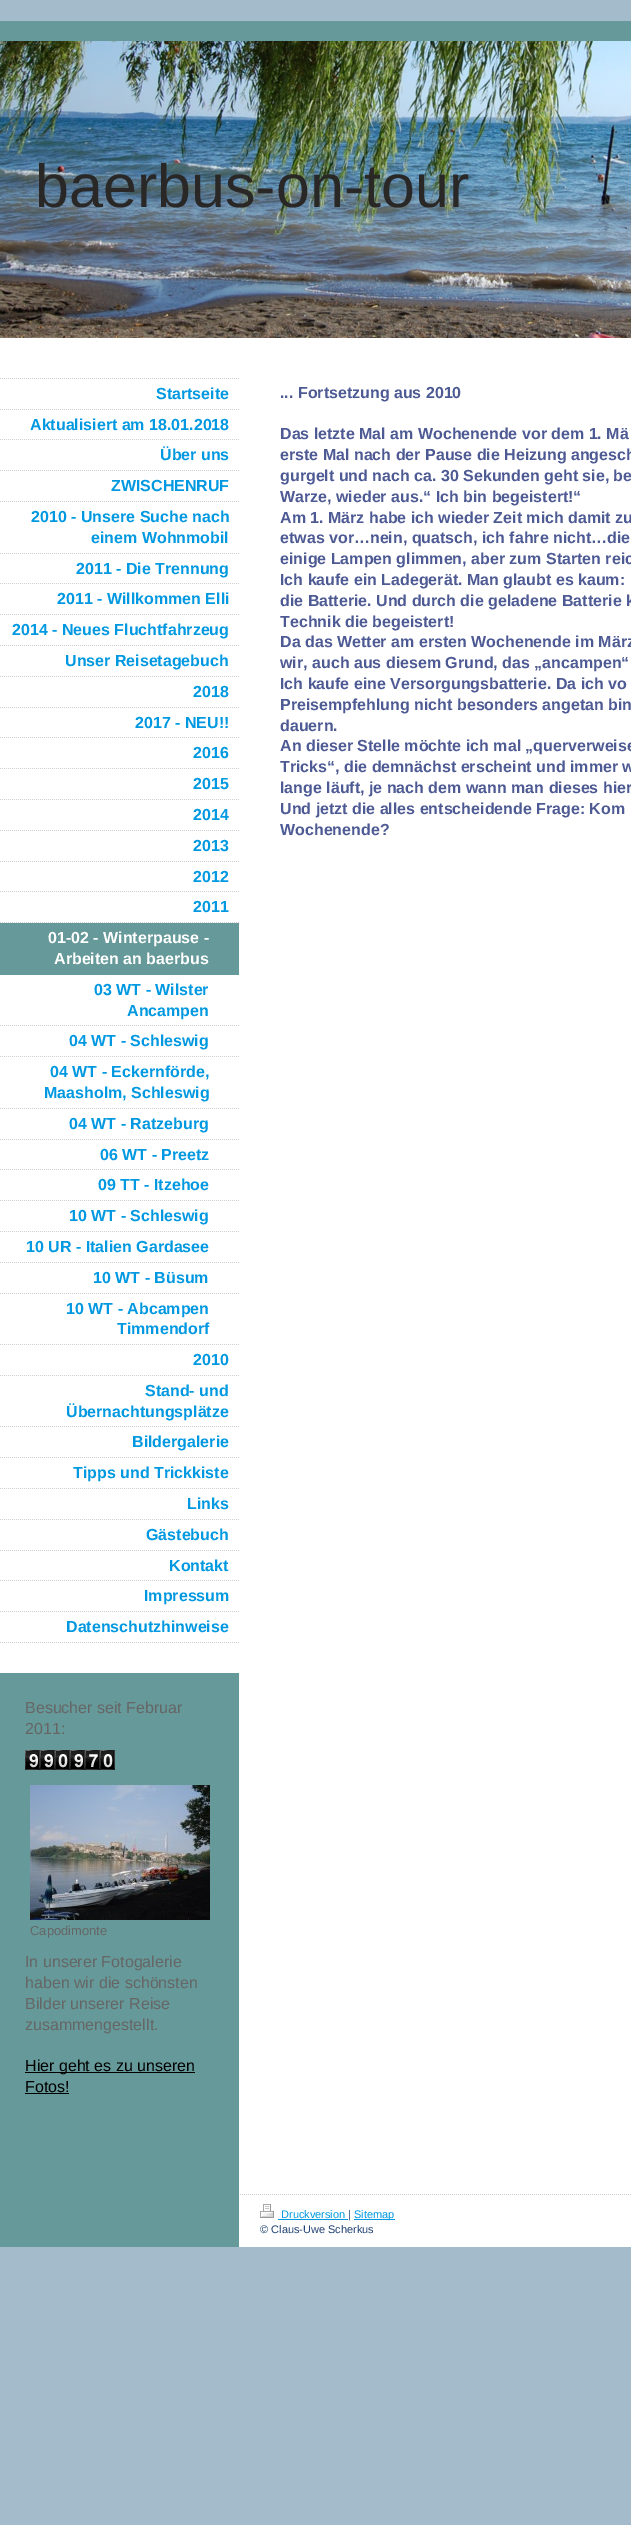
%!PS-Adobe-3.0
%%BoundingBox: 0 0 631 2525
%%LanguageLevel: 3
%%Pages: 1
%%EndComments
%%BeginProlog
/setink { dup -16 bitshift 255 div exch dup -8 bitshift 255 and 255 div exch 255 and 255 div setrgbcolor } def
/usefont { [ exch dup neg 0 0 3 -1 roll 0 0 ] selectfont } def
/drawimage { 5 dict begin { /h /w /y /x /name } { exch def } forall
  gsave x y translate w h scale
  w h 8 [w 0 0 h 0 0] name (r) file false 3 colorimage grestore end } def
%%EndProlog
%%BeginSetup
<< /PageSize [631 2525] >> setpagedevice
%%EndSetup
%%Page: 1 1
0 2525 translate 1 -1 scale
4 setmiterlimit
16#A3BBCA setink
0 0 631 2525 rectfill
[
    [0 923 239 1324 16#669999]
    [239 378 392 1869 16#FFFFFF]
    [0 338 631 40 16#FFFFFF]
    [0 21 631 20 16#669999]
] { aload pop setink rectfill } forall
(img1.raw) 0 41 631 297 drawimage
/LiberationSans-Regular 61 usefont
16#2A2727 setink
35 207 moveto (baerbus-on-tour) show
16#FFFFFF setink
0 1643 239 30 rectfill
(img2.raw) 0 378 239 1 drawimage
0 379 239 30 rectfill
(img2.raw) 0 409 239 1 drawimage
/LiberationSans-Bold 16 usefont
16#0099E1 setink
156 399 moveto (Startseite) show
16#FFFFFF setink
0 410 239 29 rectfill
(img2.raw) 0 439 239 1 drawimage
16#0099E1 setink
30 430 moveto (Aktualisiert am 18.01.2018) show
16#FFFFFF setink
0 440 239 30 rectfill
(img2.raw) 0 470 239 1 drawimage
16#0099E1 setink
160 460 moveto (Über uns) show
16#FFFFFF setink
0 471 239 30 rectfill
(img2.raw) 0 501 239 1 drawimage
16#0099E1 setink
111 491 moveto (ZWISCHENRUF) show
16#FFFFFF setink
0 502 239 51 rectfill
(img2.raw) 0 553 239 1 drawimage
16#0099E1 setink
31 522 moveto (2010 - Unsere Suche nach) show
91 543 moveto (einem Wohnmobil) show
16#FFFFFF setink
0 554 239 29 rectfill
(img2.raw) 0 583 239 1 drawimage
16#0099E1 setink
76 574 moveto (2011 - Die Trennung) show
16#FFFFFF setink
0 584 239 30 rectfill
(img2.raw) 0 614 239 1 drawimage
16#0099E1 setink
57 604 moveto (2011 - Willkommen Elli) show
16#FFFFFF setink
0 615 239 30 rectfill
(img2.raw) 0 645 239 1 drawimage
16#0099E1 setink
12 635 moveto (2014 - Neues Fluchtfahrzeug) show
16#FFFFFF setink
0 646 239 30 rectfill
(img2.raw) 0 676 239 1 drawimage
16#0099E1 setink
65 666 moveto (Unser Reisetagebuch) show
16#FFFFFF setink
0 677 239 30 rectfill
(img2.raw) 0 707 239 1 drawimage
16#0099E1 setink
193 697 moveto (2018) show
16#FFFFFF setink
0 708 239 29 rectfill
(img2.raw) 0 737 239 1 drawimage
16#0099E1 setink
135 728 moveto (2017 - NEU!!) show
16#FFFFFF setink
0 738 239 30 rectfill
(img2.raw) 0 768 239 1 drawimage
16#0099E1 setink
193 758 moveto (2016) show
16#FFFFFF setink
0 769 239 30 rectfill
(img2.raw) 0 799 239 1 drawimage
16#0099E1 setink
193 789 moveto (2015) show
16#FFFFFF setink
0 800 239 30 rectfill
(img2.raw) 0 830 239 1 drawimage
16#0099E1 setink
193 820 moveto (2014) show
16#FFFFFF setink
0 831 239 30 rectfill
(img2.raw) 0 861 239 1 drawimage
16#0099E1 setink
193 851 moveto (2013) show
16#FFFFFF setink
0 862 239 29 rectfill
(img2.raw) 0 891 239 1 drawimage
16#0099E1 setink
193 882 moveto (2012) show
16#FFFFFF setink
0 892 239 30 rectfill
(img2.raw) 0 922 239 1 drawimage
16#0099E1 setink
193 912 moveto (2011) show
16#FFFFFF setink
48 943 moveto (01-02 - Winterpause -) show
54 964 moveto (Arbeiten an baerbus) show
0 975 239 50 rectfill
(img2.raw) 0 1025 239 1 drawimage
16#0099E1 setink
94 995 moveto (03 WT - Wilster) show
127 1016 moveto (Ancampen) show
16#FFFFFF setink
0 1026 239 30 rectfill
(img2.raw) 0 1056 239 1 drawimage
16#0099E1 setink
69 1046 moveto (04 WT - Schleswig) show
16#FFFFFF setink
0 1057 239 51 rectfill
(img2.raw) 0 1108 239 1 drawimage
16#0099E1 setink
50 1077 moveto (04 WT - Eckernförde,) show
44 1098 moveto (Maasholm, Schleswig) show
16#FFFFFF setink
0 1109 239 30 rectfill
(img2.raw) 0 1139 239 1 drawimage
16#0099E1 setink
69 1129 moveto (04 WT - Ratzeburg) show
16#FFFFFF setink
0 1140 239 29 rectfill
(img2.raw) 0 1169 239 1 drawimage
16#0099E1 setink
100 1160 moveto (06 WT - Preetz) show
16#FFFFFF setink
0 1170 239 30 rectfill
(img2.raw) 0 1200 239 1 drawimage
16#0099E1 setink
98 1190 moveto (09 TT - Itzehoe) show
16#FFFFFF setink
0 1201 239 30 rectfill
(img2.raw) 0 1231 239 1 drawimage
16#0099E1 setink
69 1221 moveto (10 WT - Schleswig) show
16#FFFFFF setink
0 1232 239 30 rectfill
(img2.raw) 0 1262 239 1 drawimage
16#0099E1 setink
26 1252 moveto (10 UR - Italien Gardasee) show
16#FFFFFF setink
0 1263 239 30 rectfill
(img2.raw) 0 1293 239 1 drawimage
16#0099E1 setink
93 1283 moveto (10 WT - Büsum) show
16#FFFFFF setink
0 1294 239 50 rectfill
(img2.raw) 0 1344 239 1 drawimage
16#0099E1 setink
66 1314 moveto (10 WT - Abcampen) show
117 1334 moveto (Timmendorf) show
16#FFFFFF setink
0 1345 239 30 rectfill
(img2.raw) 0 1375 239 1 drawimage
16#0099E1 setink
193 1365 moveto (2010) show
16#FFFFFF setink
0 1376 239 50 rectfill
(img2.raw) 0 1426 239 1 drawimage
16#0099E1 setink
145 1396 moveto (Stand- und) show
66 1417 moveto (Übernachtungsplätze) show
16#FFFFFF setink
0 1427 239 30 rectfill
(img2.raw) 0 1457 239 1 drawimage
16#0099E1 setink
132 1447 moveto (Bildergalerie) show
16#FFFFFF setink
0 1458 239 30 rectfill
(img2.raw) 0 1488 239 1 drawimage
16#0099E1 setink
73 1478 moveto (Tipps und Trickkiste) show
16#FFFFFF setink
0 1489 239 30 rectfill
(img2.raw) 0 1519 239 1 drawimage
16#0099E1 setink
187 1509 moveto (Links) show
16#FFFFFF setink
0 1520 239 30 rectfill
(img2.raw) 0 1550 239 1 drawimage
16#0099E1 setink
146 1540 moveto (Gästebuch) show
16#FFFFFF setink
0 1551 239 29 rectfill
(img2.raw) 0 1580 239 1 drawimage
16#0099E1 setink
169 1571 moveto (Kontakt) show
16#FFFFFF setink
0 1581 239 30 rectfill
(img2.raw) 0 1611 239 1 drawimage
16#0099E1 setink
144 1601 moveto (Impressum) show
16#FFFFFF setink
0 1612 239 30 rectfill
(img2.raw) 0 1642 239 1 drawimage
16#0099E1 setink
66 1632 moveto (Datenschutzhinweise) show
/LiberationSans-Regular 16 usefont
16#666666 setink
25 1713 moveto (Besucher seit Februar) show
25 1734 moveto (2011:) show
(img3.raw) 25 1750 15 20 drawimage
(img3.raw) 40 1750 15 20 drawimage
(img4.raw) 55 1750 15 20 drawimage
(img3.raw) 70 1750 15 20 drawimage
(img5.raw) 85 1750 15 20 drawimage
(img4.raw) 100 1750 15 20 drawimage
(img6.raw) 30 1785 180 135 drawimage
/LiberationSans-Regular 13 usefont
30 1935 moveto (Capodimonte) show
/LiberationSans-Regular 16 usefont
[
    [(In unserer Fotogalerie) 25 1967]
    [(haben wir die schönsten) 25 1988]
    [(Bilder unserer Reise) 25 2009]
    [(zusammengestellt.) 25 2030]
] { aload pop moveto show } forall
16#000000 setink
25 2072 170 1 rectfill
25 2071 moveto (Hier geht es zu unseren) show
25 2092 moveto (Fotos!) show
25 2093 44 1 rectfill
/LiberationSans-Bold 16 usefont
16#4D5A93 setink
[
    [(... Fortsetzung aus 2010) 280 398]
    [(Das letzte Mal am Wochenende vor dem 1. Mä) 280 439]
    [(erste Mal nach der Pause die Heizung angesch) 280 460]
    [(gurgelt und nach ca. 30 Sekunden geht sie, be) 280 481]
    [(Warze, wieder aus.“ Ich bin begeistert!“) 280 502]
    [(Am 1. März habe ich wieder Zeit mich damit zu) 280 523]
    [(etwas vor…nein, quatsch, ich fahre nicht…die) 280 543]
    [(einige Lampen glimmen, aber zum Starten reic) 280 564]
    [(Ich kaufe ein Ladegerät. Man glaubt es kaum:) 280 585]
    [(die Batterie. Und durch die geladene Batterie k) 280 606]
    [(Technik die begeistert!) 280 627]
    [(Da das Wetter am ersten Wochenende im März) 280 647]
    [(wir, auch aus diesem Grund, das „ancampen“) 280 668]
    [(Ich kaufe eine Versorgungsbatterie. Da ich vo) 280 689]
    [(Preisempfehlung nicht besonders angetan bin) 280 710]
    [(dauern.) 280 731]
    [(An dieser Stelle möchte ich mal „querverweise) 280 751]
    [(Tricks“, die demnächst erscheint und immer w) 280 772]
    [(lange läuft, je nach dem wann man dieses hier) 280 793]
    [(Und jetzt die alles entscheidende Frage: Kom) 280 814]
    [(Wochenende?) 280 835]
] { aload pop moveto show } forall
(img7.raw) 240 2194 391 1 drawimage
(img8.raw) 260 2204 14 14 drawimage
/LiberationSans-Regular 11 usefont
16#0099E1 setink
281 2218 moveto (Druckversion) show
278 2219 70 1 rectfill
16#1F4072 setink
348 2218 moveto (|) show
16#0099E1 setink
354 2219 41 1 rectfill
354 2218 moveto (Sitemap) show
16#1F4072 setink
260 2233 moveto (© Claus-Uwe Scherkus) show
showpage
%%EOF
